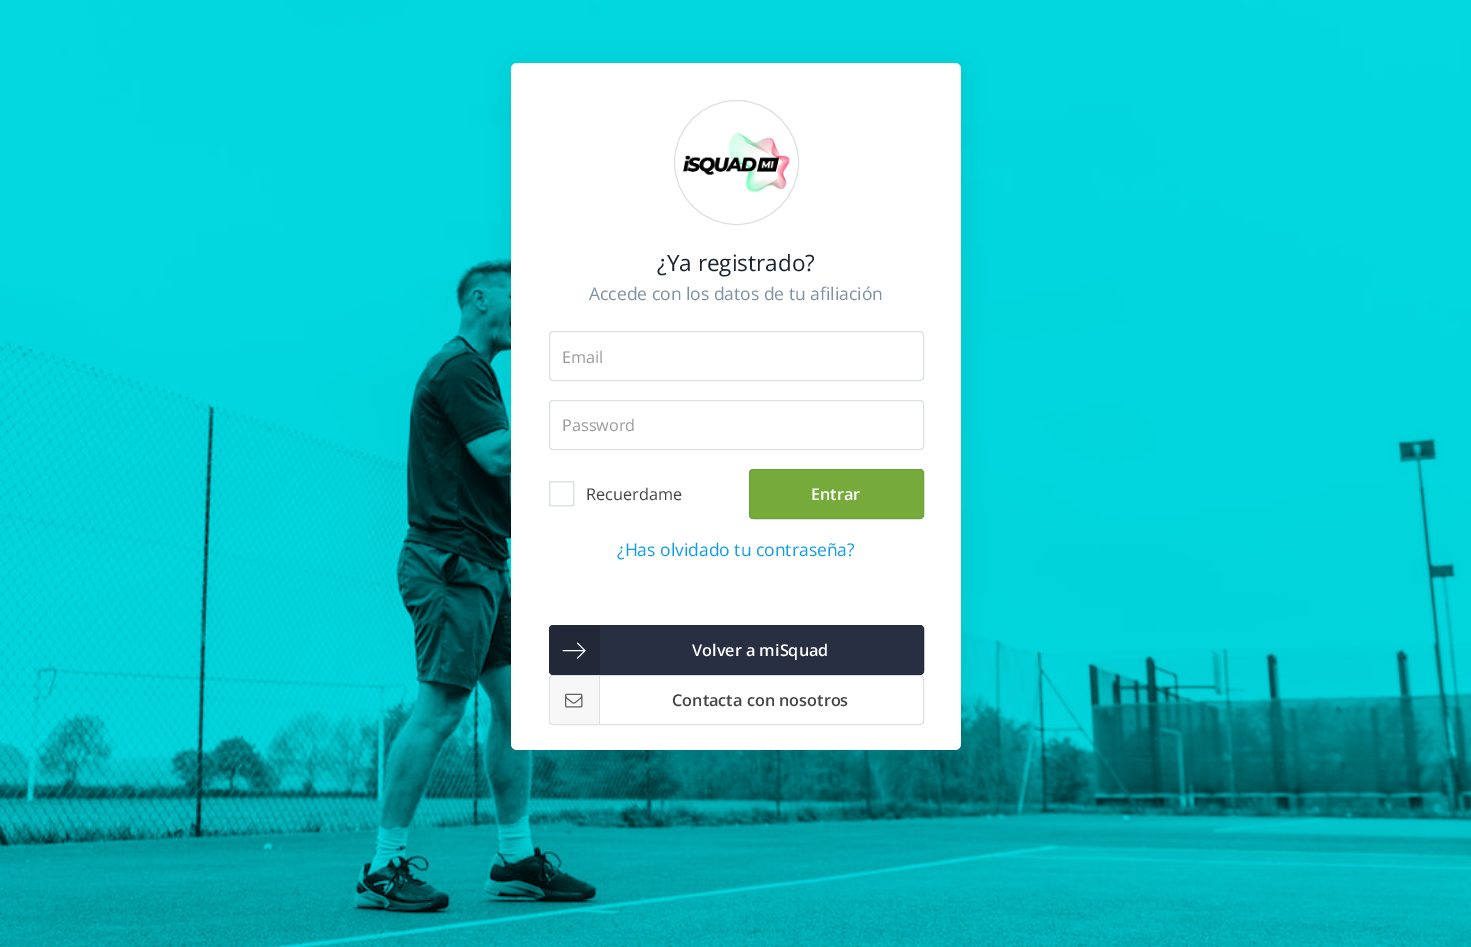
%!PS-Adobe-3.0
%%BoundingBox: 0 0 1471 947
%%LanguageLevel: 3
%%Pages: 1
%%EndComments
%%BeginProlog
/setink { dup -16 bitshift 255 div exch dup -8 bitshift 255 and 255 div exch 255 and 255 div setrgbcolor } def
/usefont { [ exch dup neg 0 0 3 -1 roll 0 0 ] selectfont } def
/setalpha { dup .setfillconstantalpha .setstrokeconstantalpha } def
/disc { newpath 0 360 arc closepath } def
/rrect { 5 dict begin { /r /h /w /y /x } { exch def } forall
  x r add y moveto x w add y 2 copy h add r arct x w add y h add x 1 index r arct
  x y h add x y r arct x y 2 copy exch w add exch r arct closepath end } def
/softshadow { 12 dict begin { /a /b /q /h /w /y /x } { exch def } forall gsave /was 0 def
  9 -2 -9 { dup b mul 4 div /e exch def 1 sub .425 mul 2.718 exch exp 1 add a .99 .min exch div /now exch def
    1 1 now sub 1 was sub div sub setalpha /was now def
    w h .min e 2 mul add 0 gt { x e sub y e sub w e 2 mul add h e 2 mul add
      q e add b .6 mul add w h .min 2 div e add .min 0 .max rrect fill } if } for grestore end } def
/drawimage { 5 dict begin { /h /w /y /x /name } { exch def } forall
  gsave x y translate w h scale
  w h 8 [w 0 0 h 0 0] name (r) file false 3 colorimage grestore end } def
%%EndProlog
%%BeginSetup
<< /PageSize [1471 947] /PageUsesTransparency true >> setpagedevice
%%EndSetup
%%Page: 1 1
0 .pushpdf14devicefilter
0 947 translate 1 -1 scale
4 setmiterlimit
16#FFFFFF setink
0 0 1471 947 rectfill
(img1.raw) 0 0 1471 947 drawimage
16#000000 setink
505 61 463 700 13 12.5 0.05 softshadow
16#FFFFFF setink
511 63 450 687 6 rrect fill
16#DBE0E4 setink
736.5 162.5 62 disc stroke
(img2.raw) 683 133 107 60 drawimage
/OpenSans-Regular 22.5 usefont
16#1B2431 setink
657 271 moveto (¿Ya registrado?) show
/OpenSans-Regular 17.5 usefont
16#7F8FA4 setink
589 300 moveto (Accede con los datos de tu afiliación) show
16#DBE0E4 setink
549.5 331.5 374 49 3.5 rrect stroke
/OpenSans-Regular 16.25 usefont
16#999999 setink
562 363 moveto (Email) show
16#DBE0E4 setink
549.5 400.5 374 49 3.5 rrect stroke
16#999999 setink
562 431 moveto (Password) show
16#DBE0E4 setink
549.5 481.5 24 24 rectstroke
549.5 481.5 24 24 2 rrect stroke
16#454545 setink
586 500 moveto (Recuerdame) show
16#76AB3C setink
749.5 469.5 174 49 3.5 rrect gsave fill grestore
16#6EA038 setink
stroke
/OpenSans-SemiBold 16.25 usefont
16#FFFFFF setink
811 500 moveto (Entrar) show
/OpenSans-Regular 17.5 usefont
16#0F9DEA setink
617 556 moveto (¿Has olvidado tu contraseña?) show
16#292F43 setink
549.5 625.5 374 49 3.5 rrect gsave fill grestore
16#232839 setink
stroke
556 626 moveto 600 626 lineto 600 674 lineto 556 674 lineto 552.5 674 550 671.5 550 668 curveto 550 632 lineto 550 628.5 552.5 626 556 626 curveto closepath fill
(img3.raw) 562 642 24 17 drawimage
/OpenSans-SemiBold 16.25 usefont
16#FFFFFF setink
692 656 moveto (Volver a miSquad) show
16#DBE0E4 setink
549.5 675.5 374 49 3.5 rrect stroke
16#F7F7F7 setink
556 676 moveto 600 676 lineto 600 724 lineto 556 724 lineto 552.5 724 550 721.5 550 718 curveto 550 682 lineto 550 678.5 552.5 676 556 676 curveto closepath fill
16#DBE0E4 setink
599 676 1 48 rectfill
(img4.raw) 565 693 18 15 drawimage
16#454545 setink
672 706 moveto (Contacta con nosotros) show
.poppdf14devicefilter showpage
%%EOF
